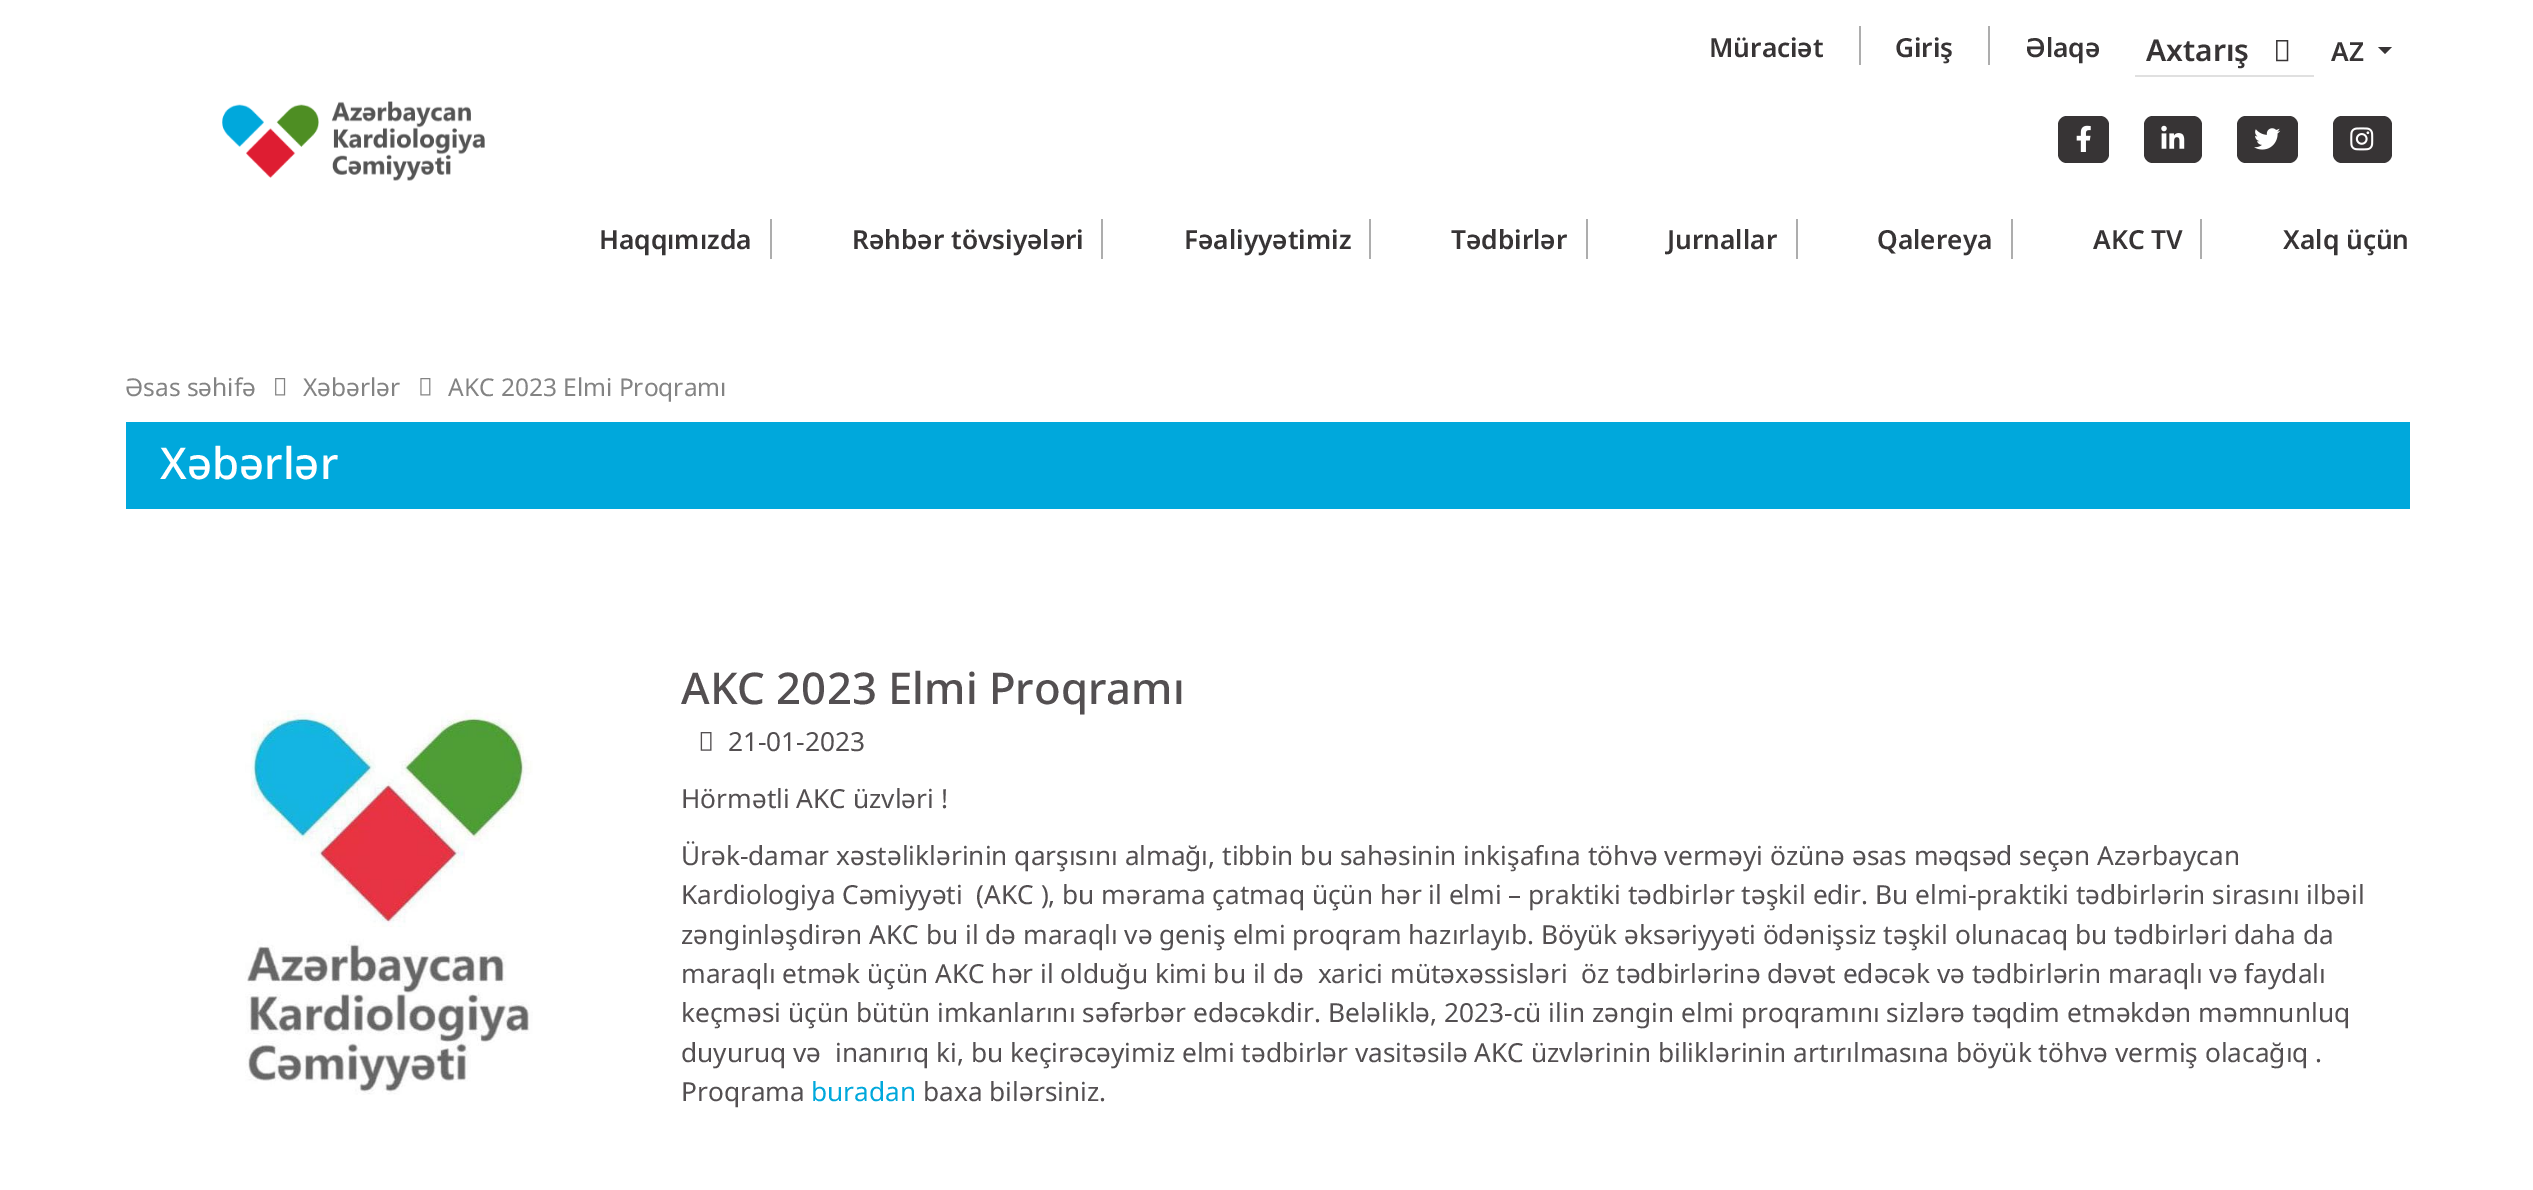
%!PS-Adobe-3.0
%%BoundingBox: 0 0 2533 1190
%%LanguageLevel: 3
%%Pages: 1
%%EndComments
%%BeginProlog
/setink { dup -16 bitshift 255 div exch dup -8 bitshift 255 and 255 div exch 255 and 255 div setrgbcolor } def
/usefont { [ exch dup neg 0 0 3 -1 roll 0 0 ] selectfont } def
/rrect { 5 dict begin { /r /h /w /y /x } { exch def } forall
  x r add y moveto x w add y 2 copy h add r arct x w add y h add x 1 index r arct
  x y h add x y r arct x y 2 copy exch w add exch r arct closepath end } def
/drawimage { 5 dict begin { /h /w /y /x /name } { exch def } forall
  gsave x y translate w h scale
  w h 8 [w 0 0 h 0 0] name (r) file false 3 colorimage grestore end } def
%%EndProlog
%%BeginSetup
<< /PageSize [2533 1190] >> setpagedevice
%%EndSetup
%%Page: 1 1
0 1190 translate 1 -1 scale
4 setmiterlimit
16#FFFFFF setink
0 0 2533 1190 rectfill
(img1.raw) 222 101 263 80 drawimage
16#ADADAD setink
1859 26 2 39 rectfill
/NotoSans-SemiBold 26.25 usefont
16#373435 setink
1709 57 moveto (Müraciət) show
16#ADADAD setink
1988 26 2 39 rectfill
16#373435 setink
1895 57 moveto (Giriş) show
2025 57 moveto (Əlaqə) show
16#E0E0E0 setink
2135 75 179 2 rectfill
/NotoSans-SemiBold 30 usefont
16#373435 setink
2146 61 moveto (Axtarış) show
(img2.raw) 2276 40 13 22 drawimage
/NotoSans-SemiBold 26.25 usefont
2331 61 moveto (AZ) show
2378 47 moveto 2392 47 lineto 2385 54 lineto closepath fill
2058 116 51 47 9 rrect fill
(img3.raw) 2076 125 15 27 drawimage
2144 116 58 47 9 rrect fill
(img4.raw) 2161 125 24 24 drawimage
2237 116 61 47 9 rrect fill
(img5.raw) 2254 128 27 22 drawimage
2333 116 59 47 9 rrect fill
(img6.raw) 2350 127 24 24 drawimage
16#ADADAD setink
770 219 2 40 rectfill
16#373435 setink
599 249 moveto (Haqqımızda) show
16#ADADAD setink
1101 219 2 40 rectfill
16#373435 setink
852 249 moveto (Rəhbər tövsiyələri) show
16#ADADAD setink
1369 219 2 40 rectfill
16#373435 setink
1184 249 moveto (Fəaliyyətimiz) show
16#ADADAD setink
1586 219 2 40 rectfill
16#373435 setink
1451 249 moveto (Tədbirlər) show
16#ADADAD setink
1796 219 2 40 rectfill
16#373435 setink
1667 249 moveto (Jurnallar) show
16#ADADAD setink
2011 219 2 40 rectfill
16#373435 setink
1877 249 moveto (Qalereya) show
16#ADADAD setink
2200 219 2 40 rectfill
16#373435 setink
2093 249 moveto (AKC TV) show
2283 249 moveto (Xalq üçün) show
/NotoSans-Regular 24.5 usefont
16#838383 setink
125 396 moveto (Əsas səhifə) show
(img7.raw) 275 378 11 18 drawimage
303 396 moveto (Xəbərlər) show
(img8.raw) 420 378 11 18 drawimage
448 396 moveto (AKC 2023 Elmi Proqramı) show
16#00A8DC setink
126 422 2284 87 rectfill
/NotoSans-Medium 43.75 usefont
16#FFFFFF setink
160 479 moveto (Xəbərlər) show
(img9.raw) 245 710 288 385 drawimage
16#534F51 setink
681 704 moveto (AKC 2023 Elmi Proqramı) show
(img10.raw) 700 732 12 19 drawimage
/NotoSans-Regular 26.25 usefont
[
    [(21-01-2023) 728 751]
    [(Hörmətli AKC üzvləri !) 681 808]
    [(Ürək-damar xəstəliklərinin qarşısını almağı, tibbin bu sahəsinin inkişafına töhvə verməyi özünə əsas məqsəd seçən Azərbaycan) 681 865]
    [(Kardiologiya Cəmiyyəti  \(AKC \), bu mərama çatmaq üçün hər il elmi – praktiki tədbirlər təşkil edir. Bu elmi-praktiki tədbirlərin sirasını ilbəil) 681 904]
    [(zənginləşdirən AKC bu il də maraqlı və geniş elmi proqram hazırlayıb. Böyük əksəriyyəti ödənişsiz təşkil olunacaq bu tədbirləri daha da) 681 944]
    [(maraqlı etmək üçün AKC hər il olduğu kimi bu il də  xarici mütəxəssisləri  öz tədbirlərinə dəvət edəcək və tədbirlərin maraqlı və faydalı) 681 983]
    [(keçməsi üçün bütün imkanlarını səfərbər edəcəkdir. Beləliklə, 2023-cü ilin zəngin elmi proqramını sizlərə təqdim etməkdən məmnunluq) 681 1022]
    [(duyuruq və  inanırıq ki, bu keçirəcəyimiz elmi tədbirlər vasitəsilə AKC üzvlərinin biliklərinin artırılmasına böyük töhvə vermiş olacağıq .) 681 1062]
    [(Proqrama) 681 1101]
] { aload pop moveto show } forall
16#00A8DC setink
811 1101 moveto (buradan) show
16#534F51 setink
923 1101 moveto (baxa bilərsiniz.) show
showpage
%%EOF
